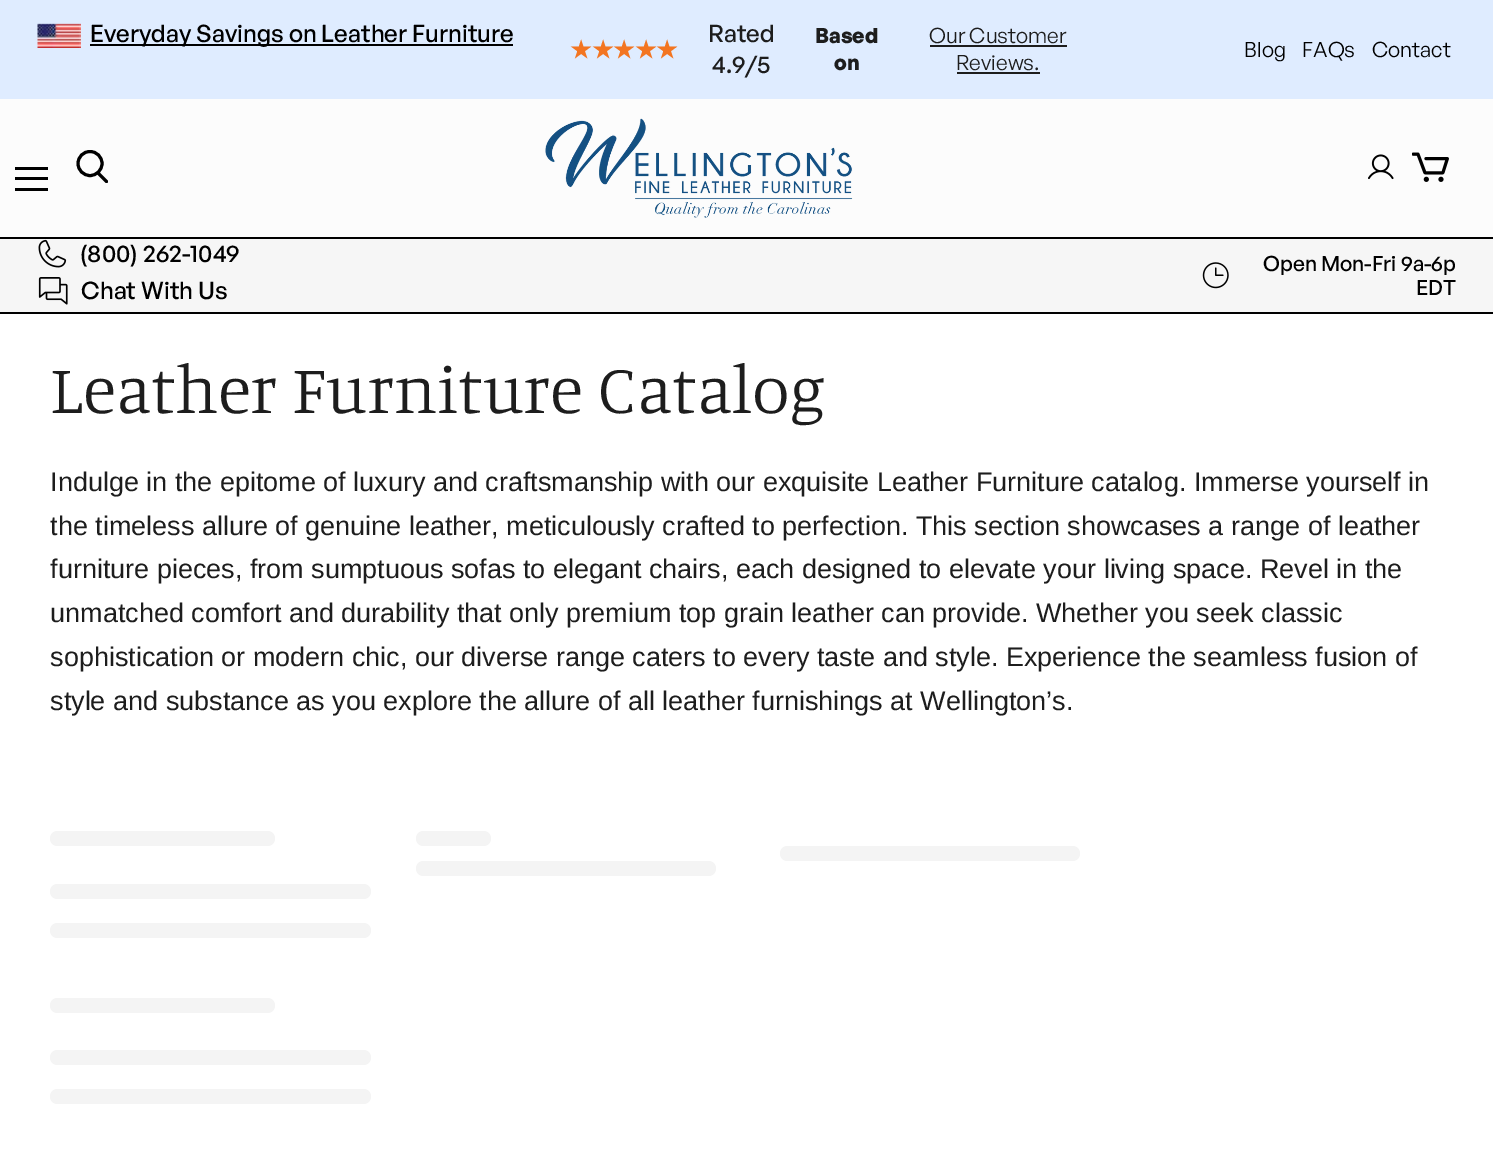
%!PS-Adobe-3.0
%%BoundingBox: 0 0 1493 1151
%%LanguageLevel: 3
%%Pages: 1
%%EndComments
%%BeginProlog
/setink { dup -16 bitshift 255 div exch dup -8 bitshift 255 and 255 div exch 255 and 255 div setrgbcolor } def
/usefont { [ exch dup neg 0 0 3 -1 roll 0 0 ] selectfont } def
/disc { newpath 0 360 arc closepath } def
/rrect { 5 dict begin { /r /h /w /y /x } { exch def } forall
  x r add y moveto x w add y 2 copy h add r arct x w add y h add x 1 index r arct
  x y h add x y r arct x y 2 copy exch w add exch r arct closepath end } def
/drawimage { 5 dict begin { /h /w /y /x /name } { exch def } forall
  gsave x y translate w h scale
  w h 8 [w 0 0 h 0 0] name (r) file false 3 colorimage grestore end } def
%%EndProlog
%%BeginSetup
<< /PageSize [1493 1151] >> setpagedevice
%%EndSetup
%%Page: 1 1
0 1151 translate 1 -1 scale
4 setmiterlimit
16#FFFFFF setink
0 0 1493 1151 rectfill
16#DFECFF setink
0 0 1493 99 rectfill
(img1.raw) 37 23 44 25 drawimage
16#000000 setink
90 44 423 2 rectfill
/GeneralSans-Medium 24 usefont
90 42 moveto (Everyday Savings on Leather Furniture) show
/DejaVuSans-Bold 24 usefont
16#F37521 setink
570 58 moveto (★★★★★) show
/GeneralSans-Medium 24 usefont
16#1D1D1D setink
708 42 moveto (Rated) show
712 73 moveto (4.9/5) show
/GeneralSans-Bold 21 usefont
815 43 moveto (Based) show
834 70 moveto (on) show
/GeneralSans-Regular 21 usefont
929 43 moveto (Our Customer) show
930 45 137 2 rectfill
956 70 moveto (Reviews.) show
957 72 83 2 rectfill
16#000000 setink
[
    [(Blog) 1244 57]
    [(FAQs) 1302 57]
    [(Contact) 1372 57]
] { aload pop moveto show } forall
[
    [0 99 1493 138 16#FCFCFC]
    [15 167 33 3 16#000000]
    [15 177 33 3 16#000000]
    [15 188 33 3 16#000000]
] { aload pop setink rectfill } forall
3 setlinewidth
1 setlinecap
106.5 181.5 moveto 98 173 lineto stroke
0 setlinecap
90 163.5 12 disc stroke
(img2.raw) 545 118 308 100 drawimage
(img3.raw) 1368 154 26 26 drawimage
(img4.raw) 1412 152 37 30 drawimage
[
    [0 239 1493 73 16#F6F6F6]
    [0 237 1493 2 16#000000]
    [0 312 1493 2 16#000000]
] { aload pop setink rectfill } forall
(img5.raw) 38 239 29 29 drawimage
/GeneralSans-Medium 24 usefont
80 262 moveto (\(800\) 262-1049) show
(img6.raw) 38 277 30 28 drawimage
81 299 moveto (Chat With Us) show
(img7.raw) 1202 262 27 27 drawimage
/GeneralSans-Medium 21 usefont
1263 271 moveto (Open Mon-Fri 9a-6p) show
1416 295 moveto (EDT) show
/Manuale-Light 68.8 usefont
16#1D1D1D setink
50 413 moveto (Leather Furniture Catalog) show
/LiberationSans-Regular 27 usefont
[
    [(Indulge in the epitome of luxury and craftsmanship with our exquisite Leather Furniture catalog. Immerse yourself in) 50 491]
    [(the timeless allure of genuine leather, meticulously crafted to perfection. This section showcases a range of leather) 50 535]
    [(furniture pieces, from sumptuous sofas to elegant chairs, each designed to elevate your living space. Revel in the) 50 578]
    [(unmatched comfort and durability that only premium top grain leather can provide. Whether you seek classic) 50 622]
    [(sophistication or modern chic, our diverse range caters to every taste and style. Experience the seamless fusion of) 50 666]
    [(style and substance as you explore the allure of all leather furnishings at Wellington’s.) 50 710]
] { aload pop moveto show } forall
16#F4F4F4 setink
50 831 225 15 7.5 rrect fill
50 884 321 15 7.5 rrect fill
50 923 321 15 7.5 rrect fill
50 998 225 15 7.5 rrect fill
50 1050 321 15 7.5 rrect fill
50 1089 321 15 7.5 rrect fill
416 831 75 15 7.5 rrect fill
780 846 300 15 7.5 rrect fill
416 861 300 15 7.5 rrect fill
showpage
%%EOF
